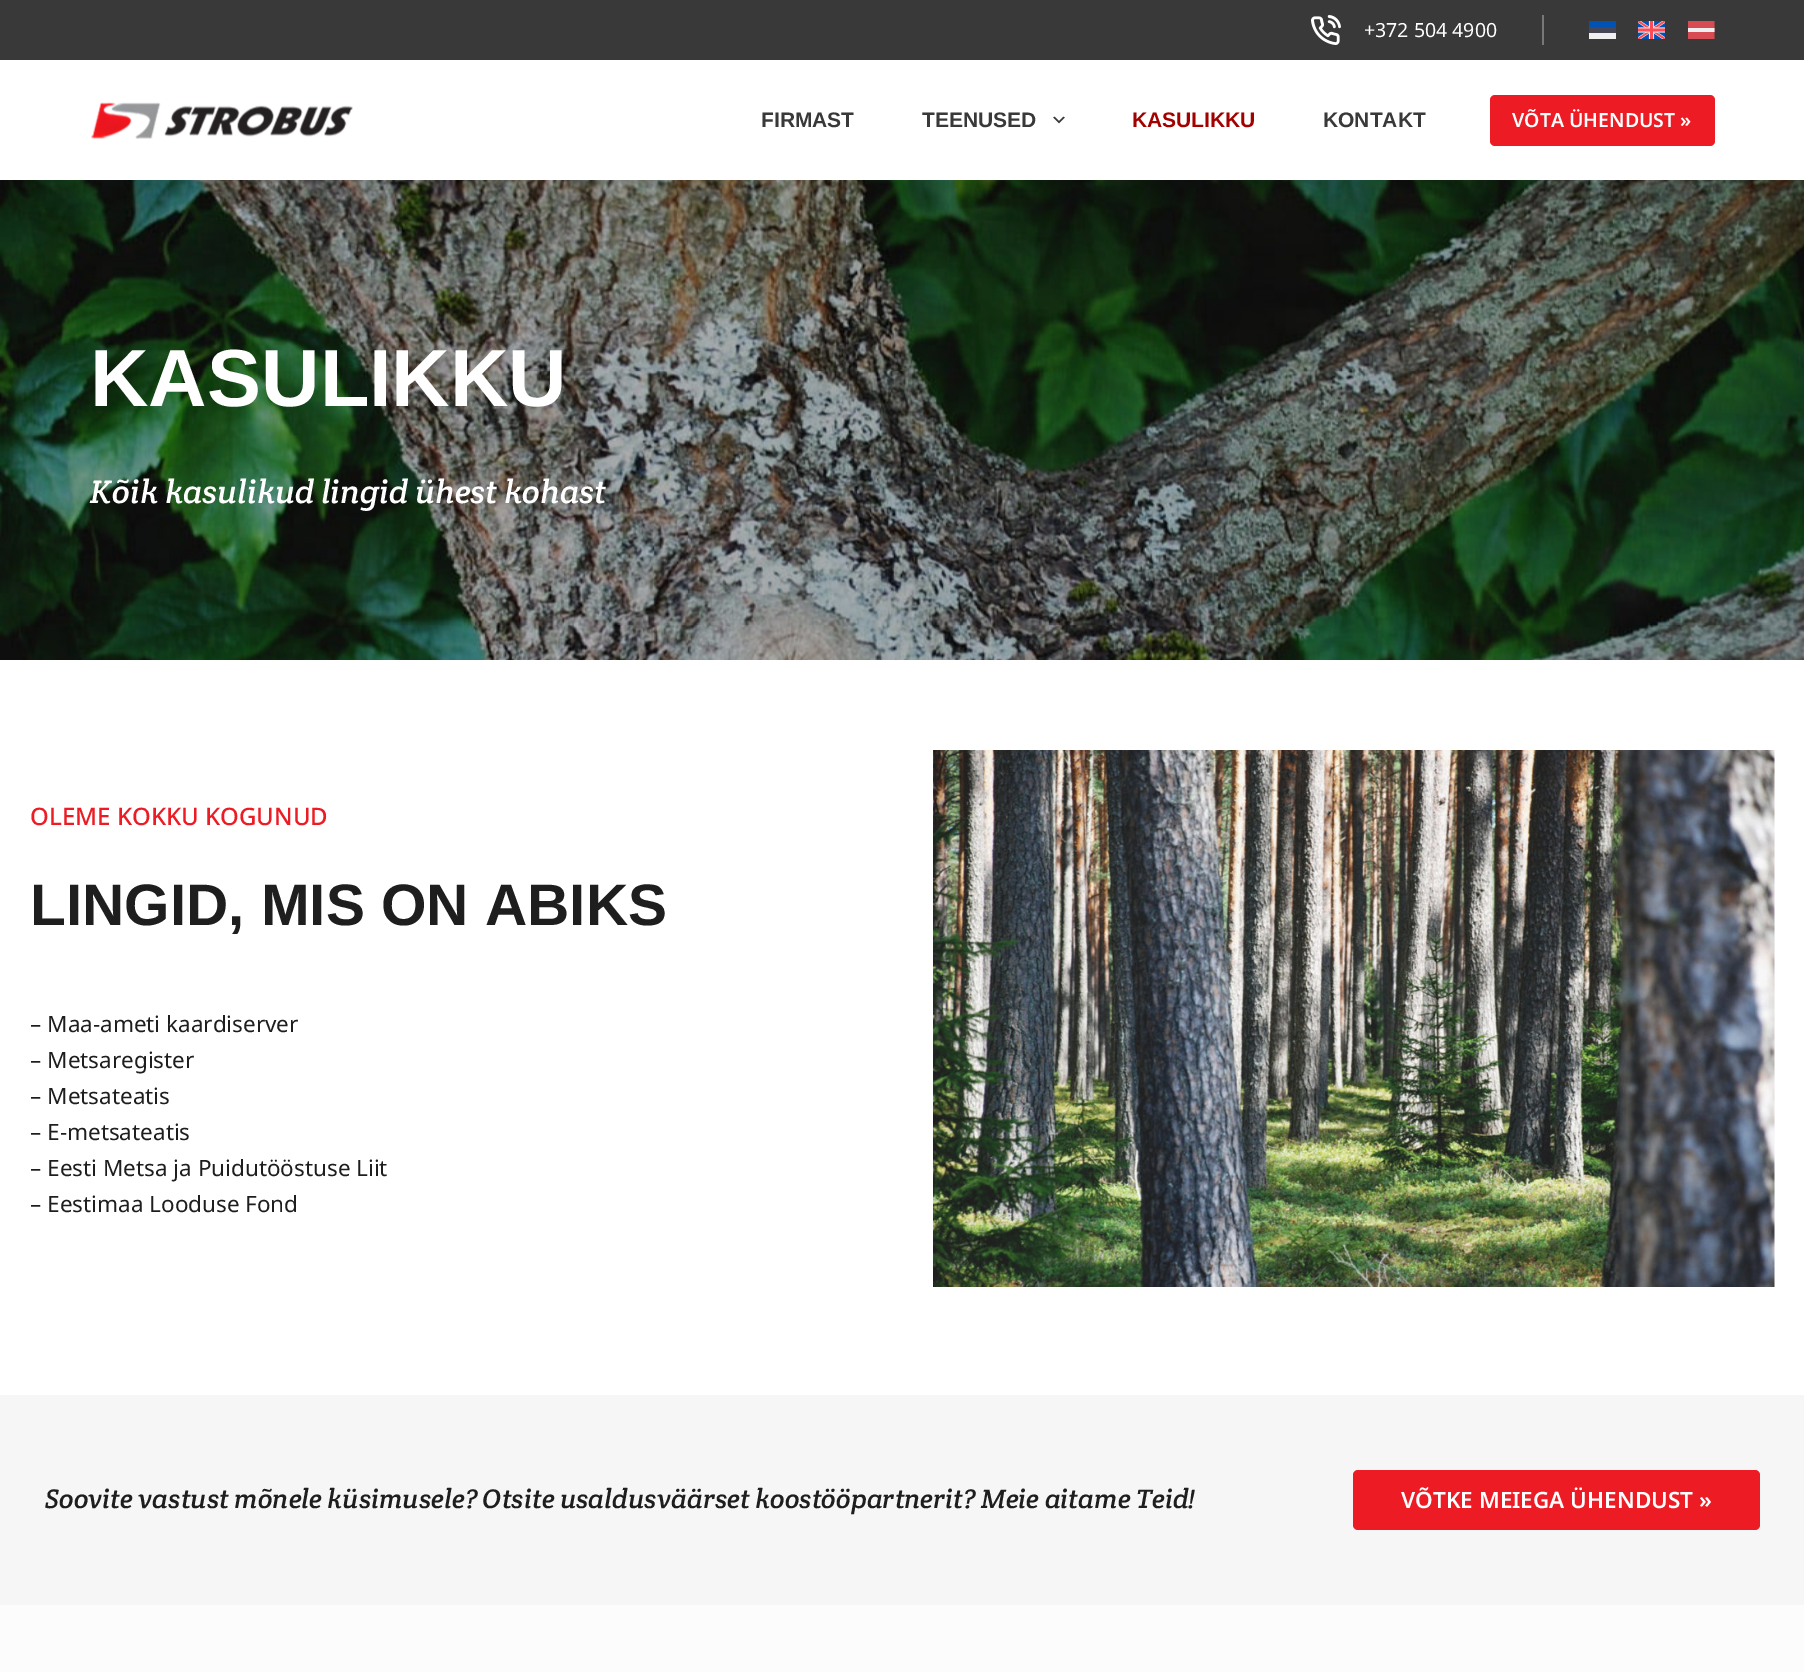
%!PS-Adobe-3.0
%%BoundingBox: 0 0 1804 1672
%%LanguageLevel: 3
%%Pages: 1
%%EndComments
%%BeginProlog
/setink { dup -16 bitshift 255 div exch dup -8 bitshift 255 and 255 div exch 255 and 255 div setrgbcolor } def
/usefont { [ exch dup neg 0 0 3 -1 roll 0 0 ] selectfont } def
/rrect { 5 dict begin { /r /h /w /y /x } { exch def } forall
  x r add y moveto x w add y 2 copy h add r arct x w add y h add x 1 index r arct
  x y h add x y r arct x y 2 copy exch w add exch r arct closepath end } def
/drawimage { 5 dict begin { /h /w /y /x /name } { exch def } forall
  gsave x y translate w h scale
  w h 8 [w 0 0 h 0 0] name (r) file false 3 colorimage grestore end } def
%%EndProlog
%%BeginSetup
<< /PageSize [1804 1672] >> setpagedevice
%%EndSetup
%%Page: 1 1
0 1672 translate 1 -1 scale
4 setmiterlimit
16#FFFFFF setink
0 0 1804 1672 rectfill
16#393939 setink
0 0 1804 60 rectfill
(img1.raw) 1311 15 30 30 drawimage
/NotoSans-Regular 19.5 usefont
16#FFFFFF setink
1364 37 moveto (+372 504 4900) show
[
    [1542 15 2 30 16#787878]
    [1589 27 27 6 16#464655]
    [1589 33 27 6 16#F0F0F0]
    [1589 21 27 6 16#0052B4]
] { aload pop setink rectfill } forall
(img2.raw) 1638 21 27 18 drawimage
gsave
1688 21 27 18 rectclip
16#D74B53 setink
1687.5 21 moveto 1714.5 21 lineto 1714.5 39 lineto 1687.5 39 lineto fill
16#F0F0F0 setink
1687.5 28 moveto 1714.5 28 lineto 1714.5 32 lineto 1687.5 32 lineto fill
grestore
(img3.raw) 91 102 262 37 drawimage
/LiberationSans-Bold 21 usefont
16#393939 setink
761 127 moveto (FIRMAST) show
922 127 moveto (TEENUSED) show
(img4.raw) 1053 116 12 8 drawimage
16#A30000 setink
1132 127 moveto (KASULIKKU) show
16#393939 setink
1323 127 moveto (KONTAKT) show
16#ED1C24 setink
1490 95 225 51 5 rrect fill
/NotoSans-SemiBold 19.5 usefont
16#FFFFFF setink
1512 127 moveto (VÕTA ÜHENDUST ») show
(img5.raw) 0 180 1804 480 drawimage
/LiberationSans-Bold 81 usefont
90 406 moveto (KASULIKKU) show
/CreteRound-Italic 33 usefont
90 503 moveto (Kõik kasulikud lingid ühest kohast) show
/NotoSans-Medium 24 usefont
16#ED1C24 setink
30 825 moveto (OLEME KOKKU KOGUNUD) show
/LiberationSans-Bold 58.5 usefont
16#1E1E1E setink
30 925 moveto (LINGID, MIS ON ABIKS) show
/NotoSans-Regular 22.5 usefont
[
    [(– Maa-ameti kaardiserver) 30 1032]
    [(– Metsaregister) 30 1068]
    [(– Metsateatis) 30 1104]
    [(– E-metsateatis) 30 1140]
    [(– Eesti Metsa ja Puidutööstuse Liit) 30 1176]
    [(– Eestimaa Looduse Fond) 30 1212]
] { aload pop moveto show } forall
(img6.raw) 933 750 842 537 drawimage
16#F5F6F5 setink
0 1395 1804 210 rectfill
/CreteRound-Italic 27 usefont
16#1E1E1E setink
45 1508 moveto (Soovite vastust mõnele küsimusele? Otsite usaldusväärset koostööpartnerit? Meie aitame Teid!) show
16#ED1C24 setink
1353 1470 407 60 5 rrect fill
/NotoSans-SemiBold 22.5 usefont
16#FFFFFF setink
1401 1508 moveto (VÕTKE MEIEGA ÜHENDUST ») show
16#FCFCFC setink
0 1605 1804 67 rectfill
showpage
%%EOF
